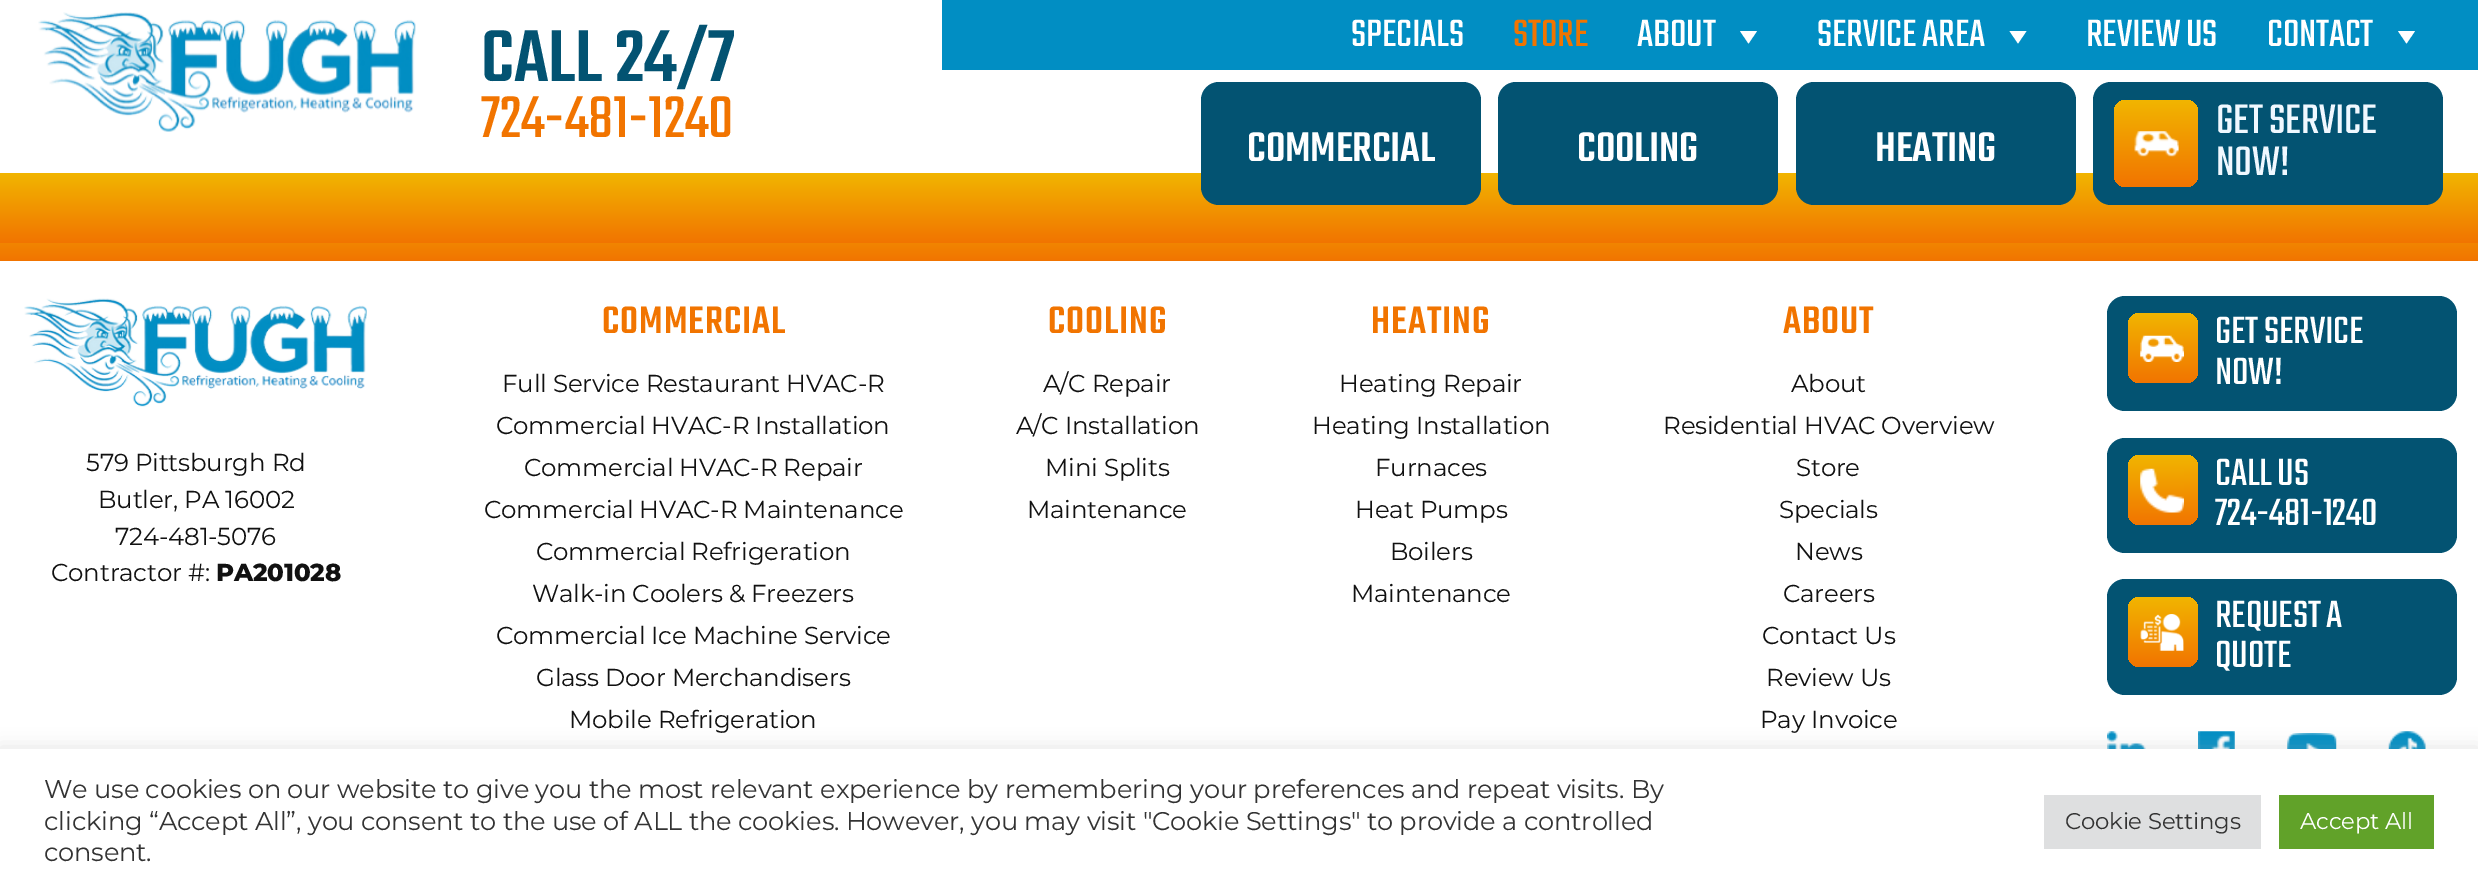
%!PS-Adobe-3.0
%%BoundingBox: 0 0 2478 892
%%LanguageLevel: 3
%%Pages: 1
%%EndComments
%%BeginProlog
/setink { dup -16 bitshift 255 div exch dup -8 bitshift 255 and 255 div exch 255 and 255 div setrgbcolor } def
/usefont { [ exch dup neg 0 0 3 -1 roll 0 0 ] selectfont } def
/setalpha { dup .setfillconstantalpha .setstrokeconstantalpha } def
/rrect { 5 dict begin { /r /h /w /y /x } { exch def } forall
  x r add y moveto x w add y 2 copy h add r arct x w add y h add x 1 index r arct
  x y h add x y r arct x y 2 copy exch w add exch r arct closepath end } def
/softshadow { 12 dict begin { /a /b /q /h /w /y /x } { exch def } forall gsave /was 0 def
  9 -2 -9 { dup b mul 4 div /e exch def 1 sub .425 mul 2.718 exch exp 1 add a .99 .min exch div /now exch def
    1 1 now sub 1 was sub div sub setalpha /was now def
    w h .min e 2 mul add 0 gt { x e sub y e sub w e 2 mul add h e 2 mul add
      q e add b .6 mul add w h .min 2 div e add .min 0 .max rrect fill } if } for grestore end } def
/drawimage { 5 dict begin { /h /w /y /x /name } { exch def } forall
  gsave x y translate w h scale
  w h 8 [w 0 0 h 0 0] name (r) file false 3 colorimage grestore end } def
%%EndProlog
%%BeginSetup
<< /PageSize [2478 892] /PageUsesTransparency true >> setpagedevice
%%EndSetup
%%Page: 1 1
0 .pushpdf14devicefilter
0 892 translate 1 -1 scale
4 setmiterlimit
16#FFFFFF setink
0 0 2478 892 rectfill
16#018EC3 setink
942 0 1536 70 rectfill
(img1.raw) 38 12 378 120 drawimage
/Teko-Medium 80.5 usefont
16#035372 setink
481 81 moveto -0.18 0 (CALL 24/7) ashow
/Teko-Regular 65 usefont
16#F17400 setink
481 137 moveto -0.18 0 (724-481-1240) ashow
/Teko-Regular 42 usefont
16#FFFFFF setink
1351 46 moveto -0.18 0 (SPECIALS) ashow
16#F17400 setink
1513 46 moveto -0.18 0 (STORE) ashow
16#FFFFFF setink
1637 46 moveto -0.18 0 (ABOUT) ashow
1757 31 moveto 1748.5 43.5 lineto 1740 31 lineto closepath fill
1817 46 moveto -0.18 0 (SERVICE AREA) ashow
2026.5 31 moveto 2018 43.5 lineto 2009.5 31 lineto closepath fill
2086 46 moveto -0.18 0 (REVIEW US) ashow
2267 46 moveto -0.18 0 (CONTACT) ashow
2415 31 moveto 2406.5 43.5 lineto 2398 31 lineto closepath fill
gsave 0 173 moveto 2478 173 lineto 2478 243 lineto 0 243 lineto closepath clip newpath
<< /ShadingType 2 /ColorSpace /DeviceRGB /Coords [1239 173 1239 243] /Extend [true true] /Function << /FunctionType 2 /Domain [0 1] /C0 [0.945 0.71 0] /C1 [0.945 0.455 0] /N 1 >> >> shfill grestore
16#035372 setink
1201 82 280 123 18 rrect fill
/Teko-Medium 45.5 usefont
16#FFFFFF setink
1247 161 moveto -0.18 0 (COMMERCIAL) ashow
16#035372 setink
1498 82 280 123 18 rrect fill
16#FFFFFF setink
1577 161 moveto -0.18 0 (COOLING) ashow
16#035372 setink
1796 82 280 123 18 rrect fill
16#FFFFFF setink
1875 161 moveto -0.18 0 (HEATING) ashow
16#035372 setink
2093 82 350 123 18 rrect fill
gsave 2114 100 84 87 12 rrect clip newpath
<< /ShadingType 2 /ColorSpace /DeviceRGB /Coords [2156 100 2156 187] /Extend [true true] /Function << /FunctionType 2 /Domain [0 1] /C0 [0.945 0.71 0] /C1 [0.945 0.455 0] /N 1 >> >> shfill grestore
(img2.raw) 2134 131 45 26 drawimage
/Teko-Regular 45.5 usefont
16#F0F8FF setink
2216 133 moveto -0.18 0 (GET SERVICE) ashow
2216 175 moveto -0.18 0 (NOW!) ashow
gsave 0 243 moveto 2478 243 lineto 2478 261 lineto 0 261 lineto closepath clip newpath
<< /ShadingType 2 /ColorSpace /DeviceRGB /Coords [1239 191 1239 261] /Extend [true true] /Function << /FunctionType 2 /Domain [0 1] /C0 [0.945 0.71 0] /C1 [0.945 0.455 0] /N 1 >> >> shfill grestore
(img3.raw) 24 298 343 109 drawimage
/Montserrat-Regular 24.5 usefont
16#111111 setink
86 471 moveto -0.18 0 (579 Pittsburgh Rd) ashow
98 508 moveto -0.18 0 (Butler, PA 16002) ashow
115 545 moveto -0.18 0 (724-481-5076) ashow
51 581 moveto -0.18 0 (Contractor #:) ashow
/Montserrat-ExtraBold 24.5 usefont
216 581 moveto -0.18 0 (PA201028) ashow
/Teko-Medium 42 usefont
16#F17400 setink
602 333 moveto 0.9 0 (COMMERCIAL) ashow
/Montserrat-Regular 24.5 usefont
16#111111 setink
502 392 moveto -0.18 0 (Full Service Restaurant HVAC-R) ashow
496 434 moveto -0.18 0 (Commercial HVAC-R Installation) ashow
524 476 moveto -0.18 0 (Commercial HVAC-R Repair) ashow
484 518 moveto -0.18 0 (Commercial HVAC-R Maintenance) ashow
536 560 moveto -0.18 0 (Commercial Refrigeration) ashow
532 602 moveto -0.18 0 (Walk-in Coolers & Freezers) ashow
496 644 moveto -0.18 0 (Commercial Ice Machine Service) ashow
536 686 moveto -0.18 0 (Glass Door Merchandisers) ashow
569 728 moveto -0.18 0 (Mobile Refrigeration) ashow
/Teko-Medium 42 usefont
16#F17400 setink
1048 333 moveto 0.9 0 (COOLING) ashow
/Montserrat-Regular 24.5 usefont
16#111111 setink
1043 392 moveto -0.18 0 (A/C Repair) ashow
1016 434 moveto -0.18 0 (A/C Installation) ashow
1045 476 moveto -0.18 0 (Mini Splits) ashow
1027 518 moveto -0.18 0 (Maintenance) ashow
/Teko-Medium 42 usefont
16#F17400 setink
1371 333 moveto 0.9 0 (HEATING) ashow
/Montserrat-Regular 24.5 usefont
16#111111 setink
1339 392 moveto -0.18 0 (Heating Repair) ashow
1312 434 moveto -0.18 0 (Heating Installation) ashow
1375 476 moveto -0.18 0 (Furnaces) ashow
1355 518 moveto -0.18 0 (Heat Pumps) ashow
1390 560 moveto -0.18 0 (Boilers) ashow
1351 602 moveto -0.18 0 (Maintenance) ashow
/Teko-Medium 42 usefont
16#F17400 setink
1783 333 moveto 0.9 0 (ABOUT) ashow
/Montserrat-Regular 24.5 usefont
16#111111 setink
1791 392 moveto -0.18 0 (About) ashow
1663 434 moveto -0.18 0 (Residential HVAC Overview) ashow
1796 476 moveto -0.18 0 (Store) ashow
1779 518 moveto -0.18 0 (Specials) ashow
1795 560 moveto -0.18 0 (News) ashow
1783 602 moveto -0.18 0 (Careers) ashow
1762 644 moveto -0.18 0 (Contact Us) ashow
1766 686 moveto -0.18 0 (Review Us) ashow
1760 728 moveto -0.18 0 (Pay Invoice) ashow
16#035372 setink
2107 296 350 115 18 rrect fill
gsave 2128 313 70 70 12 rrect clip newpath
<< /ShadingType 2 /ColorSpace /DeviceRGB /Coords [2163 313 2163 383] /Extend [true true] /Function << /FunctionType 2 /Domain [0 1] /C0 [0.945 0.71 0] /C1 [0.945 0.455 0] /N 1 >> >> shfill grestore
(img4.raw) 2140 335 44 27 drawimage
/Teko-Regular 42 usefont
16#FFFFFF setink
2215 343 moveto -0.18 0 (GET SERVICE) ashow
2215 384 moveto -0.18 0 (NOW!) ashow
16#035372 setink
2107 438 350 115 18 rrect fill
gsave 2128 455 70 70 12 rrect clip newpath
<< /ShadingType 2 /ColorSpace /DeviceRGB /Coords [2163 455 2163 525] /Extend [true true] /Function << /FunctionType 2 /Domain [0 1] /C0 [0.945 0.71 0] /C1 [0.945 0.455 0] /N 1 >> >> shfill grestore
(img5.raw) 2140 468 44 45 drawimage
16#FFFFFF setink
2215 485 moveto -0.18 0 (CALL US) ashow
2215 525 moveto -0.18 0 (724-481-1240) ashow
16#035372 setink
2107 579 350 116 18 rrect fill
gsave 2128 597 70 70 12 rrect clip newpath
<< /ShadingType 2 /ColorSpace /DeviceRGB /Coords [2163 597 2163 667] /Extend [true true] /Function << /FunctionType 2 /Domain [0 1] /C0 [0.945 0.71 0] /C1 [0.945 0.455 0] /N 1 >> >> shfill grestore
(img6.raw) 2140 614 44 37 drawimage
16#FFFFFF setink
2215 627 moveto -0.18 0 (REQUEST A) ashow
2215 667 moveto -0.18 0 (QUOTE) ashow
(img7.raw) 2107 731 39 18 drawimage
(img8.raw) 2198 731 37 18 drawimage
(img9.raw) 2287 733 50 16 drawimage
(img10.raw) 2388 731 38 18 drawimage
16#ACABAB setink
0 747 2478 144 0 9 0.3 softshadow
16#FFFFFF setink
0 749 2478 143 rectfill
/Montserrat-Regular 25.67 usefont
16#333333 setink
44 798 moveto -0.18 0 (We use cookies on our website to give you the most relevant experience by remembering your preferences and repeat visits. By) ashow
44 830 moveto -0.18 0 (clicking “Accept All”, you consent to the use of ALL the cookies. However, you may visit "Cookie Settings" to provide a controlled) ashow
44 861 moveto -0.18 0 (consent.) ashow
16#DEDFE0 setink
2044 795 217 54 rectfill
/Montserrat-Regular 22.75 usefont
16#333333 setink
2065 829 moveto -0.18 0 (Cookie Settings) ashow
16#61A229 setink
2279 795 155 54 rectfill
16#FFFFFF setink
2300 829 moveto -0.18 0 (Accept All) ashow
.poppdf14devicefilter showpage
%%EOF
